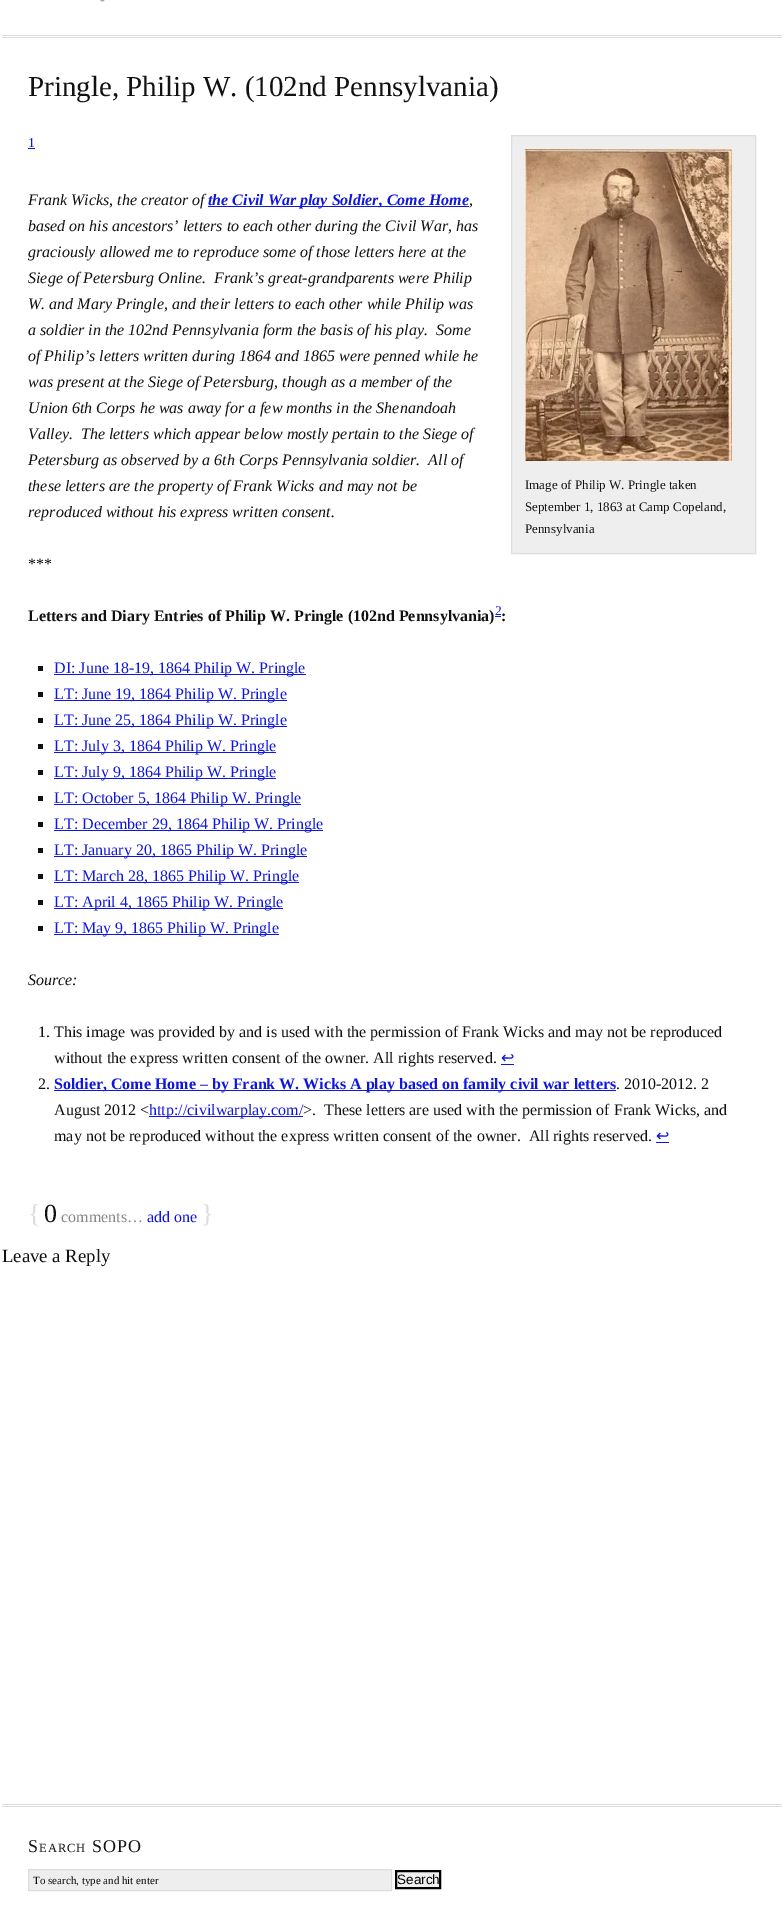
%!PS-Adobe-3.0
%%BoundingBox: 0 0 784 1923
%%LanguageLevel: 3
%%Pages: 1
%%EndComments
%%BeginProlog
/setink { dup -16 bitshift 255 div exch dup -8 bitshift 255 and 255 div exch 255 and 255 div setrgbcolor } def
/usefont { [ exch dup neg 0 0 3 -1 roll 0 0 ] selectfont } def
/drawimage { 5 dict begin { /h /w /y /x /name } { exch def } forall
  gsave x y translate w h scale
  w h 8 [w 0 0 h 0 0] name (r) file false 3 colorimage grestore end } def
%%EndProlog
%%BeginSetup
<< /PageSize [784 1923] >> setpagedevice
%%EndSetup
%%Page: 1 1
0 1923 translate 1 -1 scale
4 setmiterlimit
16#FFFFFF setink
0 0 784 1923 rectfill
16#DDDDDD setink
2 35 780 1 rectfill
2 37 780 1 rectfill
/LiberationSerif-Regular 14 usefont
16#888888 setink
100 4 moveto (-) show
/LiberationSerif-Regular 29 usefont
16#111111 setink
28 96 moveto (Pringle, Philip W. \(102nd Pennsylvania\)) show
/LiberationSerif-Regular 13.5 usefont
16#0F16DD setink
28 147 moveto (1) show
28 148 7 1 rectfill
/LiberationSerif-Italic 16 usefont
16#111111 setink
28 205 moveto (Frank Wicks, the creator of) show
16#0F16DD setink
208 206 261 1 rectfill
/LiberationSerif-BoldItalic 16 usefont
208 205 moveto (the Civil War play Soldier, Come Home) show
/LiberationSerif-Italic 16 usefont
16#111111 setink
[
    [(,) 469 205]
    [(based on his ancestors’ letters to each other during the Civil War, has) 28 231]
    [(graciously allowed me to reproduce some of those letters here at the) 28 257]
    [(Siege of Petersburg Online.  Frank’s great-grandparents were Philip) 28 283]
    [(W. and Mary Pringle, and their letters to each other while Philip was) 28 309]
    [(a soldier in the 102nd Pennsylvania form the basis of his play.  Some) 28 335]
    [(of Philip’s letters written during 1864 and 1865 were penned while he) 28 361]
    [(was present at the Siege of Petersburg, though as a member of the) 28 387]
    [(Union 6th Corps he was away for a few months in the Shenandoah) 28 413]
    [(Valley.  The letters which appear below mostly pertain to the Siege of) 28 439]
    [(Petersburg as observed by a 6th Corps Pennsylvania soldier.  All of) 28 465]
    [(these letters are the property of Frank Wicks and may not be) 28 491]
    [(reproduced without his express written consent.) 28 517]
] { aload pop moveto show } forall
16#EEEEEE setink
511.5 135.5 moveto 755.5 135.5 lineto 755.5 553.5 lineto 511.5 553.5 lineto closepath gsave fill grestore
16#DDDDDD setink
stroke
(img1.raw) 525 149 207 312 drawimage
/LiberationSerif-Regular 13 usefont
16#111111 setink
[
    [(Image of Philip W. Pringle taken) 525 489]
    [(September 1, 1863 at Camp Copeland,) 525 511]
    [(Pennsylvania) 525 533]
] { aload pop moveto show } forall
/LiberationSerif-Regular 16 usefont
28 569 moveto (***) show
/LiberationSerif-Bold 16 usefont
28 621 moveto (Letters and Diary Entries of Philip W. Pringle \(102nd Pennsylvania\)) show
/LiberationSerif-Regular 13.5 usefont
16#0F16DD setink
495 615 moveto (2) show
495 616 6 1 rectfill
/LiberationSerif-Bold 16 usefont
16#111111 setink
501 621 moveto (:) show
38 666 5 5 rectfill
16#0F16DD setink
54 674 252 1 rectfill
/LiberationSerif-Regular 16 usefont
54 673 moveto (DI: June 18-19, 1864 Philip W. Pringle) show
16#111111 setink
38 692 5 5 rectfill
16#0F16DD setink
54 700 233 1 rectfill
54 699 moveto (LT: June 19, 1864 Philip W. Pringle) show
16#111111 setink
38 718 5 5 rectfill
16#0F16DD setink
54 726 233 1 rectfill
54 725 moveto (LT: June 25, 1864 Philip W. Pringle) show
16#111111 setink
38 744 5 5 rectfill
16#0F16DD setink
54 752 222 1 rectfill
54 751 moveto (LT: July 3, 1864 Philip W. Pringle) show
16#111111 setink
38 770 5 5 rectfill
16#0F16DD setink
54 778 222 1 rectfill
54 777 moveto (LT: July 9, 1864 Philip W. Pringle) show
16#111111 setink
38 796 5 5 rectfill
16#0F16DD setink
54 804 247 1 rectfill
54 803 moveto (LT: October 5, 1864 Philip W. Pringle) show
16#111111 setink
38 822 5 5 rectfill
16#0F16DD setink
54 830 269 1 rectfill
54 829 moveto (LT: December 29, 1864 Philip W. Pringle) show
16#111111 setink
38 848 5 5 rectfill
16#0F16DD setink
54 856 253 1 rectfill
54 855 moveto (LT: January 20, 1865 Philip W. Pringle) show
16#111111 setink
38 874 5 5 rectfill
16#0F16DD setink
54 882 245 1 rectfill
54 881 moveto (LT: March 28, 1865 Philip W. Pringle) show
16#111111 setink
38 900 5 5 rectfill
16#0F16DD setink
54 908 229 1 rectfill
54 907 moveto (LT: April 4, 1865 Philip W. Pringle) show
16#111111 setink
38 926 5 5 rectfill
16#0F16DD setink
54 934 225 1 rectfill
54 933 moveto (LT: May 9, 1865 Philip W. Pringle) show
/LiberationSerif-Italic 16 usefont
16#111111 setink
28 985 moveto (Source:) show
/LiberationSerif-Regular 16 usefont
38 1037 moveto (1. This image was provided by and is used with the permission of Frank Wicks and may not be reproduced) show
54 1063 moveto (without the express written consent of the owner. All rights reserved.) show
/DejaVuSans-Regular 16 usefont
16#0F16DD setink
501 1063 moveto (↩) show
501 1064 13 1 rectfill
/LiberationSerif-Regular 16 usefont
16#111111 setink
38 1089 moveto (2.) show
16#0F16DD setink
54 1090 562 1 rectfill
/LiberationSerif-Bold 16 usefont
54 1089 moveto (Soldier, Come Home – by Frank W. Wicks A play based on family civil war letters) show
/LiberationSerif-Regular 16 usefont
16#111111 setink
616 1089 moveto (. 2010-2012. 2) show
54 1115 moveto (August 2012 <) show
16#0F16DD setink
149 1116 154 1 rectfill
149 1115 moveto (http://civilwarplay.com/) show
16#111111 setink
303 1115 moveto (>.  These letters are used with the permission of Frank Wicks, and) show
54 1141 moveto (may not be reproduced without the express written consent of the owner.  All rights reserved.) show
/DejaVuSans-Regular 16 usefont
16#0F16DD setink
656 1141 moveto (↩) show
656 1142 13 1 rectfill
/LiberationSerif-Regular 26 usefont
16#DDDDDD setink
28 1222 moveto ({) show
16#111111 setink
44 1222 moveto (0) show
/LiberationSerif-Regular 16 usefont
16#888888 setink
61 1222 moveto (comments…) show
16#0F16DD setink
147 1222 moveto (add one) show
/LiberationSerif-Regular 26 usefont
16#DDDDDD setink
201 1222 moveto (}) show
/LiberationSerif-Regular 18.75 usefont
16#111111 setink
2 1262 moveto (Leave a Reply) show
16#DDDDDD setink
2 1804 780 1 rectfill
2 1806 780 1 rectfill
/LiberationSerif-Regular 18 usefont
16#111111 setink
28 1852 moveto 1 0 (S) ashow
/LiberationSerif-Regular 12.5 usefont
39 1852 moveto 1 0 (EARCH) ashow
/LiberationSerif-Regular 18 usefont
92 1852 moveto 1 0 (SOPO) ashow
16#EEEEEE setink
28.5 1869.5 moveto 391.5 1869.5 lineto 391.5 1890.5 lineto 28.5 1890.5 lineto closepath gsave fill grestore
16#DDDDDD setink
stroke
gsave
33 1874 354 12 rectclip
/LiberationSerif-Regular 11 usefont
16#111111 setink
33 1884 moveto (To search, type and hit enter) show
grestore
16#EFEFEF setink
396 1871 moveto 440 1871 lineto 440 1888 lineto 396 1888 lineto closepath gsave fill grestore
16#000000 setink
2 setlinewidth
stroke
/LiberationSans-Regular 13.5 usefont
397 1884 moveto (Search) show
showpage
%%EOF
